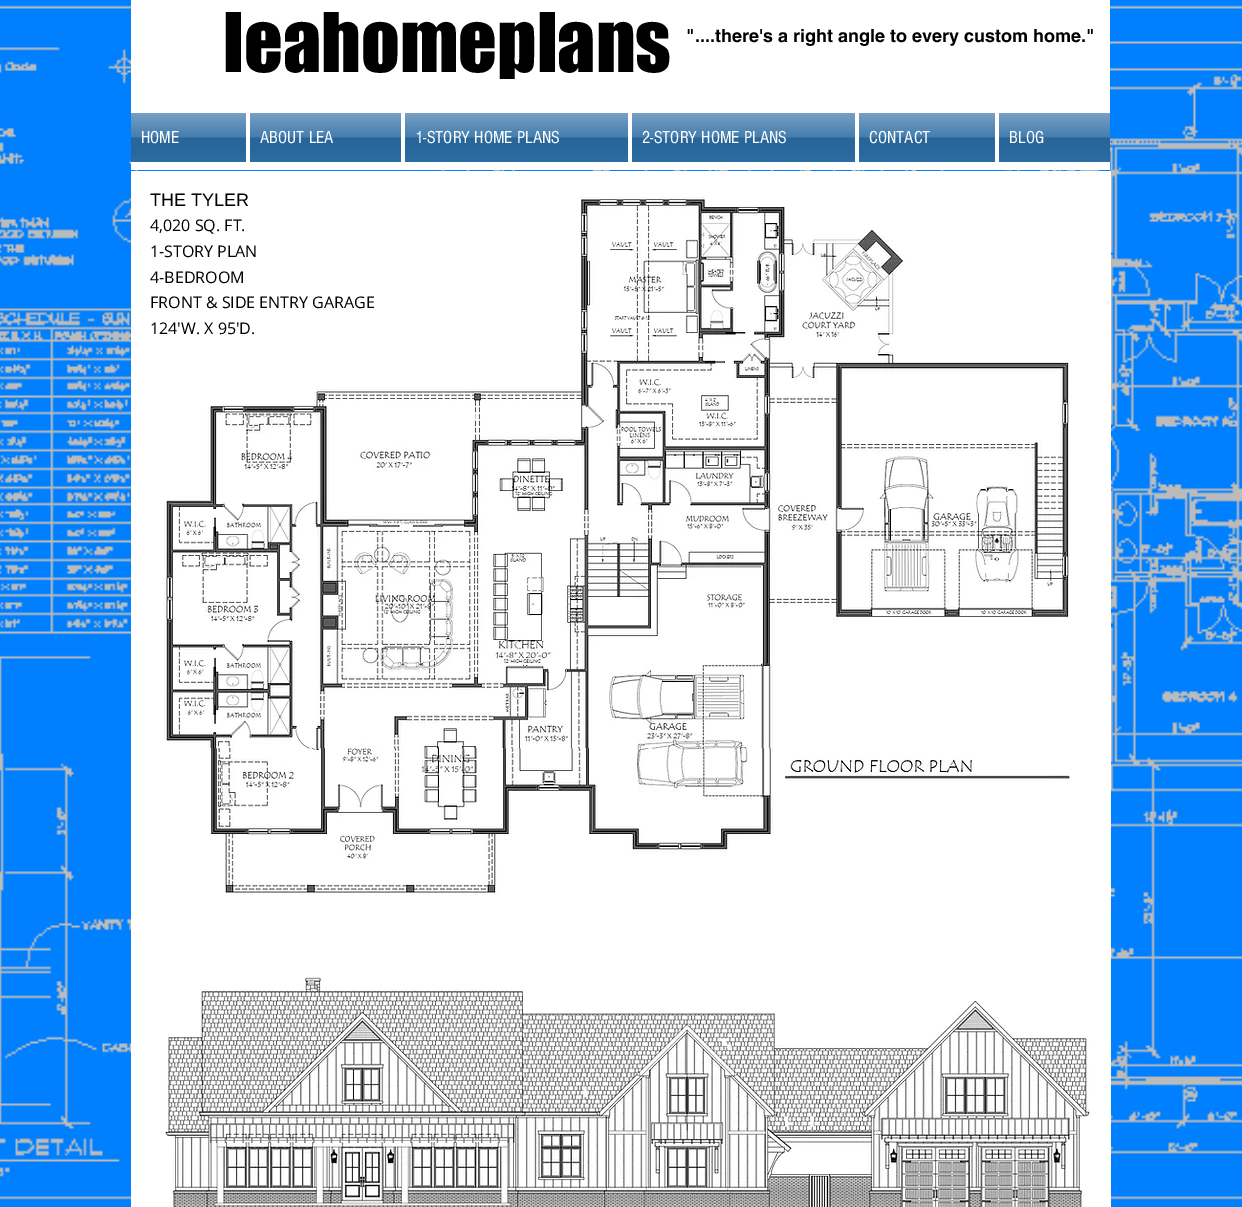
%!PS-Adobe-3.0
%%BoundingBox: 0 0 1242 1207
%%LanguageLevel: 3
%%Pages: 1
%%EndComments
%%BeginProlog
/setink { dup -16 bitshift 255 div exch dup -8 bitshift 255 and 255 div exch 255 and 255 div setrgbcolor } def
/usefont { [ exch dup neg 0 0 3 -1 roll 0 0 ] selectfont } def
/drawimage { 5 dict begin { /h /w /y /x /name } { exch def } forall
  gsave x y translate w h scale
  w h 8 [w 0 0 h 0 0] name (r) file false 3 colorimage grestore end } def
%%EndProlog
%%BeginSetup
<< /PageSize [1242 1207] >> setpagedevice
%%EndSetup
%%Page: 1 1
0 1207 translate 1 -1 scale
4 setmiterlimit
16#FFFFFF setink
0 0 1242 1207 rectfill
(img1.raw) 0 0 1242 1207 drawimage
131 0 979 170 rectfill
/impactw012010-Regular 76 usefont
16#000000 setink
223 72 moveto (leahomeplans) show
/helvetica-Bold 18 usefont
686 42 moveto ("....there's a right angle to every custom home.") show
16#2B6CA3 setink
131 113 115 49 rectfill
(img2.raw) 131 113 115 44 drawimage
/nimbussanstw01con-Regular 18 usefont
16#FFFFFF setink
141 143 moveto (HOME) show
16#2B6CA3 setink
250 113 151 49 rectfill
(img3.raw) 250 113 151 44 drawimage
16#FFFFFF setink
260 143 moveto (ABOUT LEA) show
16#2B6CA3 setink
405 113 223 49 rectfill
(img4.raw) 405 113 223 44 drawimage
16#FFFFFF setink
415 143 moveto (1-STORY HOME PLANS) show
16#2B6CA3 setink
632 113 223 49 rectfill
(img4.raw) 632 113 223 44 drawimage
16#FFFFFF setink
642 143 moveto (2-STORY HOME PLANS) show
16#2B6CA3 setink
859 113 136 49 rectfill
(img5.raw) 859 113 136 44 drawimage
16#FFFFFF setink
869 143 moveto (CONTACT) show
16#2B6CA3 setink
999 113 111 49 rectfill
(img6.raw) 999 113 111 44 drawimage
16#FFFFFF setink
1009 143 moveto (BLOG) show
131 171 980 1036 rectfill
(img7.raw) 164 196 909 700 drawimage
/LiberationSans-Regular 18 usefont
16#000000 setink
150 206 moveto (THE TYLER) show
/OpenSans-Regular 16 usefont
[
    [(4,020 SQ. FT.) 150 231]
    [(1-STORY PLAN) 150 257]
    [(4-BEDROOM) 150 283]
    [(FRONT & SIDE ENTRY GARAGE) 150 308]
    [(124'W. X 95'D.) 150 334]
] { aload pop moveto show } forall
(img8.raw) 165 977 926 230 drawimage
showpage
%%EOF
